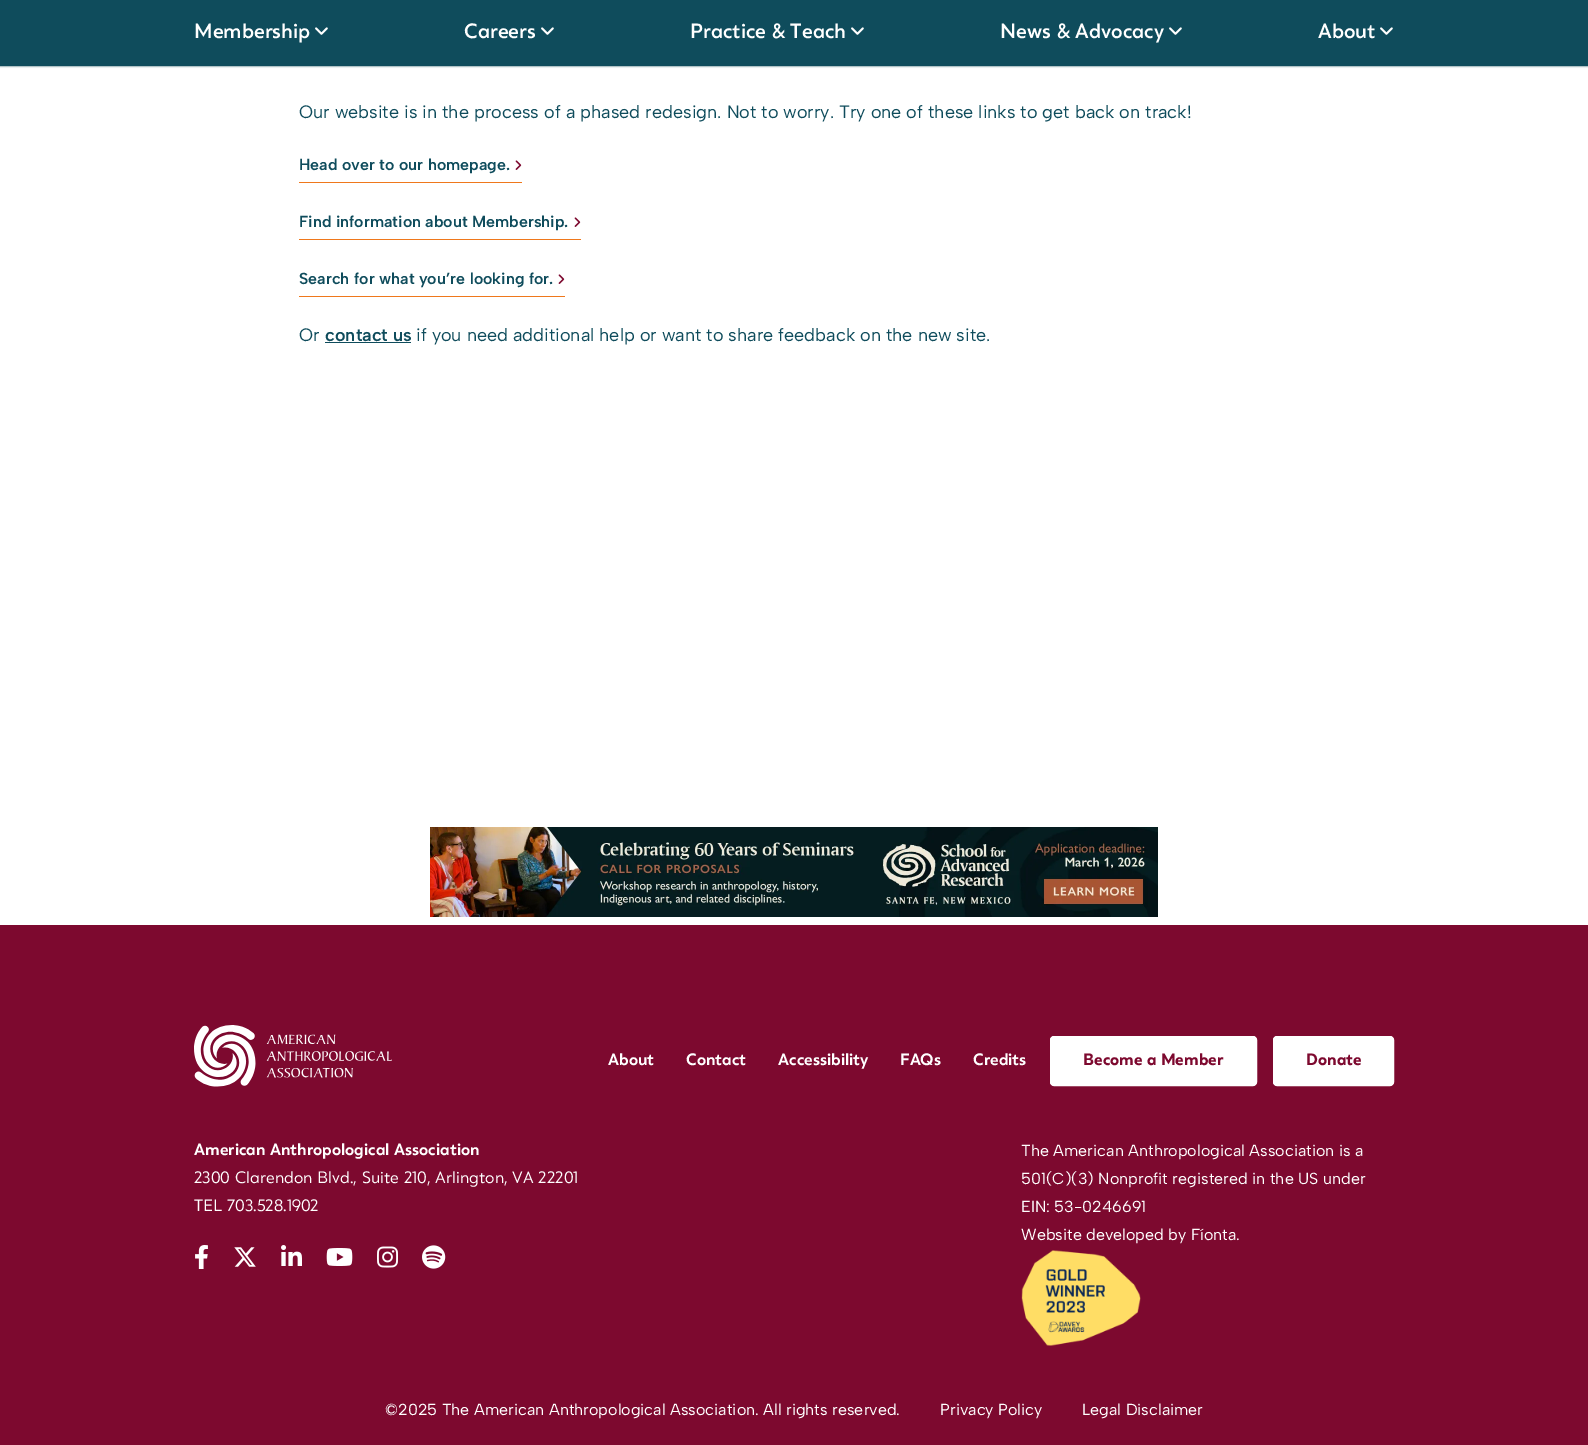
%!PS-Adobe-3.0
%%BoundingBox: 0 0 1588 1445
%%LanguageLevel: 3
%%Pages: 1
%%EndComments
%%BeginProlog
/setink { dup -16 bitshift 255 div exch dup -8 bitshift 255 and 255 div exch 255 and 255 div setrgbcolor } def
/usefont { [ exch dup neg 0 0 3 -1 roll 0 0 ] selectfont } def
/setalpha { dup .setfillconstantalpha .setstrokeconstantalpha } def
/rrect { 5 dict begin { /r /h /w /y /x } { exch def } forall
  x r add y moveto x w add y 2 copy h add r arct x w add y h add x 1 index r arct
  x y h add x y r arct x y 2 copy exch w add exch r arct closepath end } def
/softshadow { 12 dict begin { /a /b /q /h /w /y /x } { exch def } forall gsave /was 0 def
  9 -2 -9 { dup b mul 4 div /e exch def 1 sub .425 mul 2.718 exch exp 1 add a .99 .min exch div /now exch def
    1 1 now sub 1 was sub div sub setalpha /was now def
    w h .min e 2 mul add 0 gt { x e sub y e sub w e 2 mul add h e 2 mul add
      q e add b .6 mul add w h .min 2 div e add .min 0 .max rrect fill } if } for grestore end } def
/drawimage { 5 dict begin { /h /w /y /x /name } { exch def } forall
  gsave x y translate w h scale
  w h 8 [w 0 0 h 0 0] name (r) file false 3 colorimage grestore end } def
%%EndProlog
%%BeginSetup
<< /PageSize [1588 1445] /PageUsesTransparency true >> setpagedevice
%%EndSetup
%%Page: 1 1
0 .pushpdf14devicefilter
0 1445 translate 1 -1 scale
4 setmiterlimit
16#FFFFFF setink
0 0 1588 1445 rectfill
16#023A48 setink
0 0 1588 66 0 1 1 softshadow
16#0F4C5C setink
0 0 1588 66 rectfill
/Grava-Medium 20 usefont
16#FFFFFF setink
194 38 moveto (Membership) show
(img1.raw) 315 27 13 8 drawimage
464 38 moveto (Careers) show
(img1.raw) 541 27 13 8 drawimage
690 38 moveto (Practice & Teach) show
(img1.raw) 851 27 13 8 drawimage
1000 38 moveto (News & Advocacy) show
(img1.raw) 1169 27 13 8 drawimage
1318 38 moveto (About) show
(img1.raw) 1380 27 13 8 drawimage
/AlbertSans-Regular 18 usefont
16#0F4C5C setink
299 118 moveto (Our website is in the process of a phased redesign. Not to worry. Try one of these links to get back on track!) show
16#EF781C setink
299 182 223 1 rectfill
/AlbertSans-SemiBold 16 usefont
16#0F4C5C setink
299 170 moveto (Head over to our homepage.) show
(img2.raw) 515 160 7 10 drawimage
16#EF781C setink
299 239 282 1 rectfill
16#0F4C5C setink
299 227 moveto (Find information about Membership.) show
(img2.raw) 574 217 7 10 drawimage
16#EF781C setink
299 296 266 1 rectfill
16#0F4C5C setink
299 284 moveto (Search for what you’re looking for.) show
(img2.raw) 558 274 7 10 drawimage
/AlbertSans-Regular 18 usefont
299 341 moveto (Or) show
/AlbertSans-SemiBold 18 usefont
325 341 moveto (contact us) show
325 342 86 1 rectfill
/AlbertSans-Regular 18 usefont
416 341 moveto (if you need additional help or want to share feedback on the new site.) show
(img3.raw) 430 827 728 90 drawimage
16#7D092F setink
0 925 1588 520 rectfill
(img4.raw) 194 1025 198 62 drawimage
/Grava-SemiBold 16 usefont
16#FFFFFF setink
[
    [(About) 608 1065]
    [(Contact) 686 1065]
    [(Accessibility) 778 1065]
    [(FAQs) 900 1065]
    [(Credits) 973 1065]
] { aload pop moveto show } forall
1050.5 1036.5 206 49 3.5 rrect gsave fill grestore
stroke
/Grava-Bold 16 usefont
16#7D092F setink
1083 1065 moveto (Become a Member) show
16#FFFFFF setink
1273.5 1036.5 120 49 3.5 rrect gsave fill grestore
stroke
16#7D092F setink
1306 1065 moveto (Donate) show
/Grava-SemiBold 16 usefont
16#FFFFFF setink
194 1155 moveto (American Anthropological Association) show
/Grava-Light 16 usefont
194 1183 moveto (2300 Clarendon Blvd., Suite 210, Arlington, VA 22201) show
194 1211 moveto (TEL 703.528.1902) show
(img5.raw) 195 1245 13 24 drawimage
(img6.raw) 234 1247 22 20 drawimage
(img7.raw) 281 1245 21 21 drawimage
(img8.raw) 326 1248 27 18 drawimage
(img9.raw) 377 1246 21 22 drawimage
(img10.raw) 422 1245 24 24 drawimage
/AlbertSans-Regular 16 usefont
[
    [(The American Anthropological Association is a) 1021 1156]
    [(501\(C\)\(3\) Nonprofit registered in the US under) 1021 1184]
    [(EIN: 53-0246691) 1021 1212]
    [(Website developed by Fíonta.) 1021 1240]
] { aload pop moveto show } forall
(img11.raw) 1021 1250 120 96 drawimage
[
    [(©2025 The American Anthropological Association. All rights reserved.) 385 1415]
    [(Privacy Policy) 940 1415]
    [(Legal Disclaimer) 1082 1415]
] { aload pop moveto show } forall
.poppdf14devicefilter showpage
%%EOF
